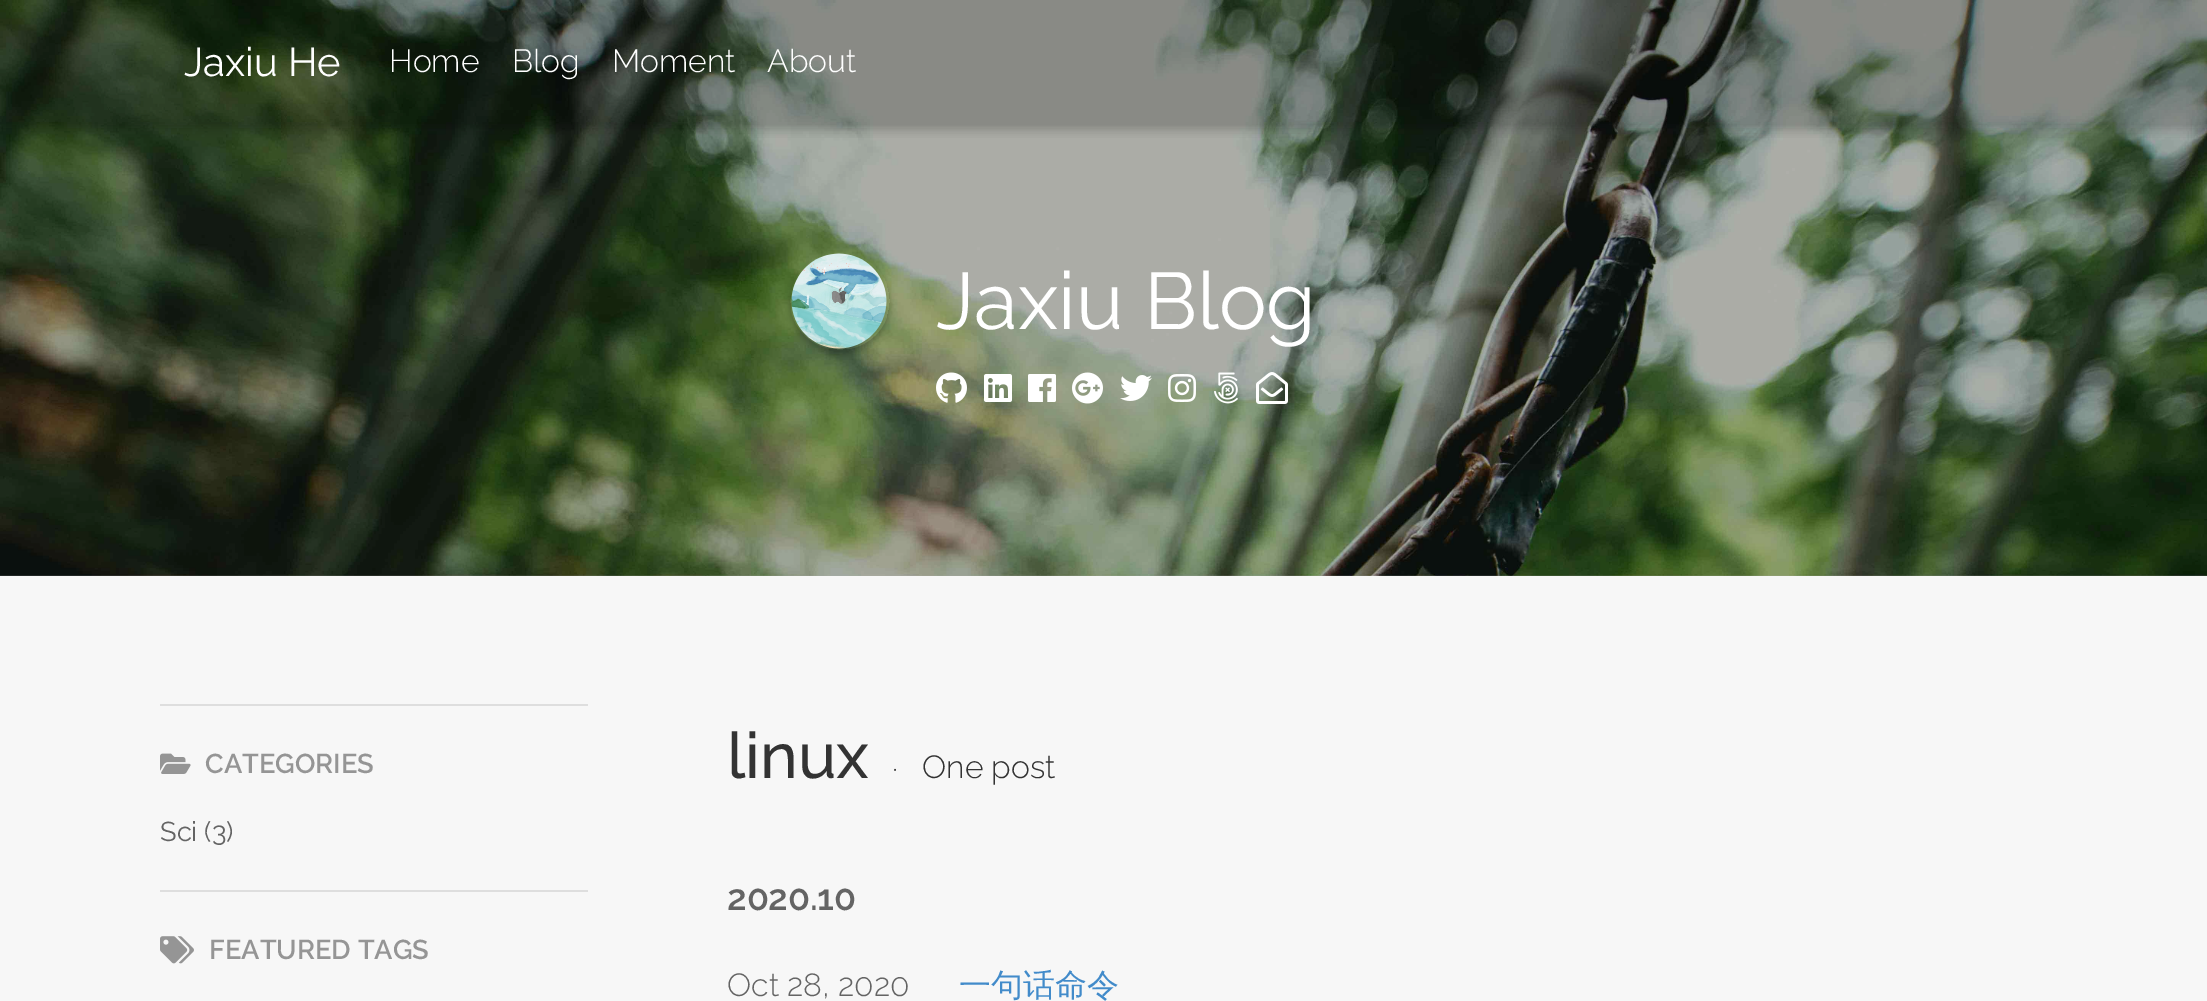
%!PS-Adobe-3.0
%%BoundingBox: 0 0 2207 1001
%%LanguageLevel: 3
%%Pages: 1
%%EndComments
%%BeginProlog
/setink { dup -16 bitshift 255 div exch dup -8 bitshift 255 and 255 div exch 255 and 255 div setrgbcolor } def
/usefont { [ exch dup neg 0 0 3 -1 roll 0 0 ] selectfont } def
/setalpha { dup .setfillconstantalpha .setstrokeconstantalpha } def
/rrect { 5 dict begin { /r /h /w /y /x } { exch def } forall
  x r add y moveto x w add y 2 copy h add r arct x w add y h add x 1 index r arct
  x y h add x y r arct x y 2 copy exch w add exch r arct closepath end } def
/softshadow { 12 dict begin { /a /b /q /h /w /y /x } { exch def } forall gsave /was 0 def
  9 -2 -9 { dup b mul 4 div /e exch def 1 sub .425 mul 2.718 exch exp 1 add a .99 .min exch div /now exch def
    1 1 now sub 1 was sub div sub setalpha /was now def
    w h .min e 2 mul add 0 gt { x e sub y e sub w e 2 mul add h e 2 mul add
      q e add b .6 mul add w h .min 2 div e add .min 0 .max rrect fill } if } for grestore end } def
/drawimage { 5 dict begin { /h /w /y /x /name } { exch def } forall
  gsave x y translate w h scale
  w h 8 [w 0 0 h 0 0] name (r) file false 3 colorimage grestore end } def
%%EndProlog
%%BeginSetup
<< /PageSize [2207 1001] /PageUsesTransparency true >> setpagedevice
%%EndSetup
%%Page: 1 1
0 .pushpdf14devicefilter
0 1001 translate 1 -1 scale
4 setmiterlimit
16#F7F7F7 setink
0 0 2207 1001 rectfill
(img1.raw) 0 0 2207 576 drawimage
gsave
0 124 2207 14 rectclip
16#000000 setink
0 4 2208 124 0 10 0.12 softshadow
grestore
gsave
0 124 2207 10 rectclip
16#000000 setink
0 4 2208 124 0 5 0.16 softshadow
grestore
0.2 setalpha
16#000000 setink
0 0 2207 124 rectfill
/Raleway-Regular 40 usefont
1 setalpha
16#FFFFFF setink
184 76 moveto (Jaxiu He) show
/Raleway-Light 32 usefont
[
    [(Home) 389 72]
    [(Blog) 512 72]
    [(Moment) 612 72]
    [(About) 767 72]
] { aload pop moveto show } forall
gsave
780 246 moveto 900 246 lineto 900 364 lineto 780 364 lineto closepath 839 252 moveto 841 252 lineto 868 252 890 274 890 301 curveto 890 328 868 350 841 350 curveto 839 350 lineto 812 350 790 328 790 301 curveto 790 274 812 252 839 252 curveto closepath eoclip newpath
16#000000 setink
790 256 100 98 49 3 0.2 softshadow
grestore
(img2.raw) 791 253 96 96 drawimage
/Raleway-Regular 80 usefont
936 329 moveto (Jaxiu Blog) show
(img3.raw) 936 372 31 31 drawimage
(img4.raw) 984 374 28 28 drawimage
(img5.raw) 1028 374 28 28 drawimage
(img6.raw) 1072 372 31 32 drawimage
(img7.raw) 1120 375 32 26 drawimage
(img8.raw) 1168 374 28 28 drawimage
(img9.raw) 1214 372 24 32 drawimage
(img10.raw) 1256 372 32 32 drawimage
16#DEDEDE setink
160 704 428 2 rectfill
(img11.raw) 160 753 31 21 drawimage
/Raleway-SemiBold 27.25 usefont
16#959595 setink
205 773 moveto (CATEGORIES) show
/Raleway-Regular 27.25 usefont
16#646464 setink
160 841 moveto (Sci \(3\)) show
16#DEDEDE setink
160 890 428 2 rectfill
(img12.raw) 160 936 34 28 drawimage
/Raleway-SemiBold 27.25 usefont
16#959595 setink
209 959 moveto (FEATURED TAGS) show
/Raleway-Medium 64 usefont
16#333333 setink
727 778 moveto (linux) show
/Raleway-Light 12 usefont
893 774 moveto (•) show
/Raleway-Light 32 usefont
922 778 moveto (One post) show
/Raleway-SemiBold 36 usefont
16#646464 setink
727 910 moveto -0.25 0 (2020.10) ashow
/Raleway-Light 32 usefont
727 996 moveto (Oct 28, 2020) show
/WenQuanYiZenHei-Medium 32 usefont
16#428BCA setink
959 996 moveto (一句话命令) show
.poppdf14devicefilter showpage
%%EOF
